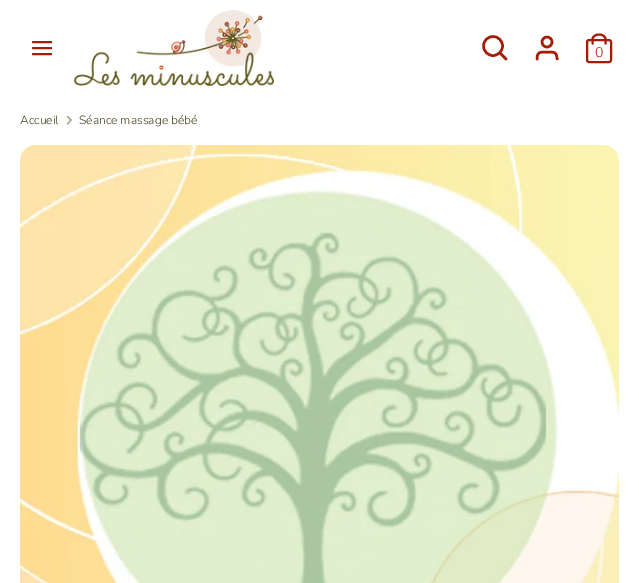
%!PS-Adobe-3.0
%%BoundingBox: 0 0 639 583
%%LanguageLevel: 3
%%Pages: 1
%%EndComments
%%BeginProlog
/setink { dup -16 bitshift 255 div exch dup -8 bitshift 255 and 255 div exch 255 and 255 div setrgbcolor } def
/usefont { [ exch dup neg 0 0 3 -1 roll 0 0 ] selectfont } def
/disc { newpath 0 360 arc closepath } def
/rrect { 5 dict begin { /r /h /w /y /x } { exch def } forall
  x r add y moveto x w add y 2 copy h add r arct x w add y h add x 1 index r arct
  x y h add x y r arct x y 2 copy exch w add exch r arct closepath end } def
/drawimage { 5 dict begin { /h /w /y /x /name } { exch def } forall
  gsave x y translate w h scale
  w h 8 [w 0 0 h 0 0] name (r) file false 3 colorimage grestore end } def
%%EndProlog
%%BeginSetup
<< /PageSize [639 583] >> setpagedevice
%%EndSetup
%%Page: 1 1
0 583 translate 1 -1 scale
4 setmiterlimit
16#FFFFFF setink
0 0 639 583 rectfill
16#A31D07 setink
2 setlinewidth
1 setlinecap
33 48 moveto 51 48 lineto 33 42 moveto 51 42 lineto 33 54 moveto 51 54 lineto stroke
(img1.raw) 74 10 200 76 drawimage
2.5 setlinewidth
0 setlinecap
493 46 9.5 disc stroke
1 setlinecap
506 59 moveto 500 53 lineto 557 59 moveto 557 51.5 554 52 547 52 curveto 540 52 537 51.5 537 59 curveto stroke
0 setlinecap
547 42 5 disc stroke
2 setlinewidth
587 40 24 22 2 rrect stroke
2.1 setlinewidth
1 setlinecap
592.5 43.5 moveto 592.5 39.5 lineto 592.5 36.5 595.5 34.5 599 34.5 curveto 602.5 34.5 605.5 36.5 605.5 39.5 curveto 605.5 43.5 lineto stroke
/Nunito-Light 14 usefont
595 57 moveto (0) show
/Nunito-Light 12 usefont
16#443D18 setink
20 124 moveto (Accueil) show
16#A29E8C setink
1.2 setlinewidth
67.5 124 moveto 71 120 lineto 67.5 116.5 lineto stroke
16#443D18 setink
79 124 moveto (Séance massage bébé) show
(img2.raw) 20 145 599 438 drawimage
showpage
%%EOF
